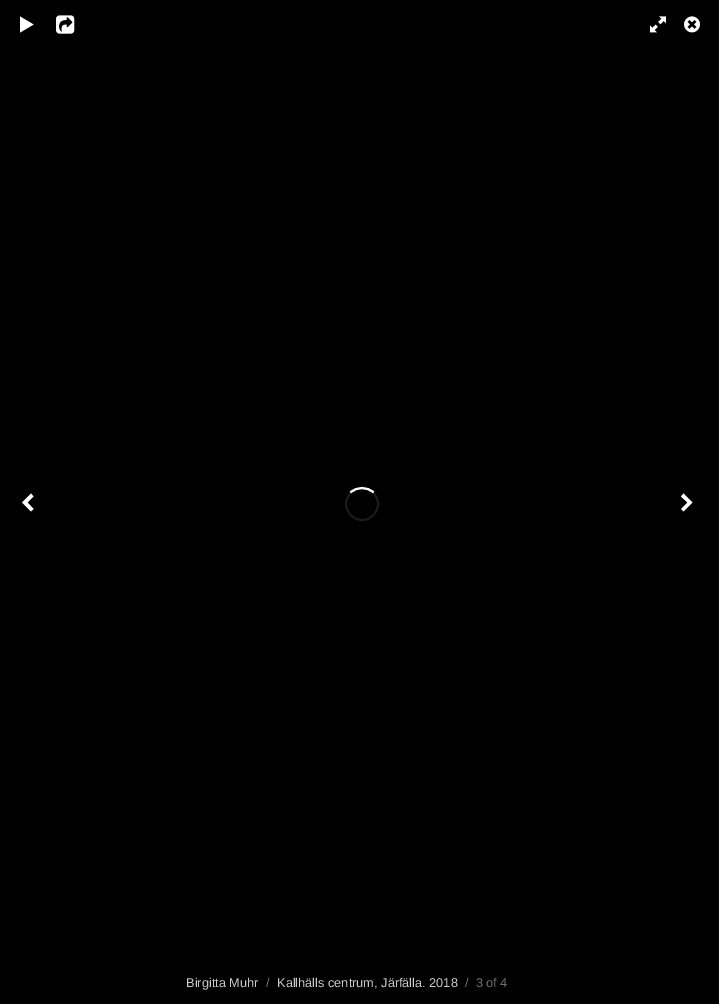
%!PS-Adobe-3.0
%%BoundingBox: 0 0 719 1004
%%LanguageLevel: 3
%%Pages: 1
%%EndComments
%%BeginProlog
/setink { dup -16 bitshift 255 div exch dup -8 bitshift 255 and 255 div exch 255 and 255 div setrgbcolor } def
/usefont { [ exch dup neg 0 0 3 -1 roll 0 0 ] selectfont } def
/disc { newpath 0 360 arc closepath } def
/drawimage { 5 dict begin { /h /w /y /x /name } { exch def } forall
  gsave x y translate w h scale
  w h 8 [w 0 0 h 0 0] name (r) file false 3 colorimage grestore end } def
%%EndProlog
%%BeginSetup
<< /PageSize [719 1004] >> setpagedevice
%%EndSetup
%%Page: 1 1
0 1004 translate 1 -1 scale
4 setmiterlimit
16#000000 setink
0 0 719 1004 rectfill
16#FFFFFF setink
20 32.5 moveto 20 16.5 lineto 33.5 24.5 lineto closepath fill
(img1.raw) 56 15 19 19 drawimage
(img2.raw) 650 16 16 17 drawimage
(img3.raw) 684 16 16 17 drawimage
22 502.5 moveto 31 493.5 lineto 33.5 496.5 lineto 27.5 502.5 lineto 33.5 509 lineto 31 511.5 lineto closepath fill
16#1A1A1A setink
2 setlinewidth
362 504 16 disc stroke
16#FFFFFF setink
350.5 492.5 moveto 357 486.5 367 486.5 373.5 492.5 curveto stroke
681 509 moveto 687.5 502.5 lineto 681 496.5 lineto 683.5 493.5 lineto 692.5 502.5 lineto 683.5 511.5 lineto closepath fill
/LiberationSans-Regular 12.75 usefont
16#CCCCCC setink
186 987 moveto (Birgitta Muhr) show
16#707070 setink
266 987 moveto (/) show
16#CCCCCC setink
277 987 moveto (Kallhälls centrum, Järfälla. 2018) show
16#707070 setink
465 987 moveto (/  3 of 4) show
showpage
%%EOF
